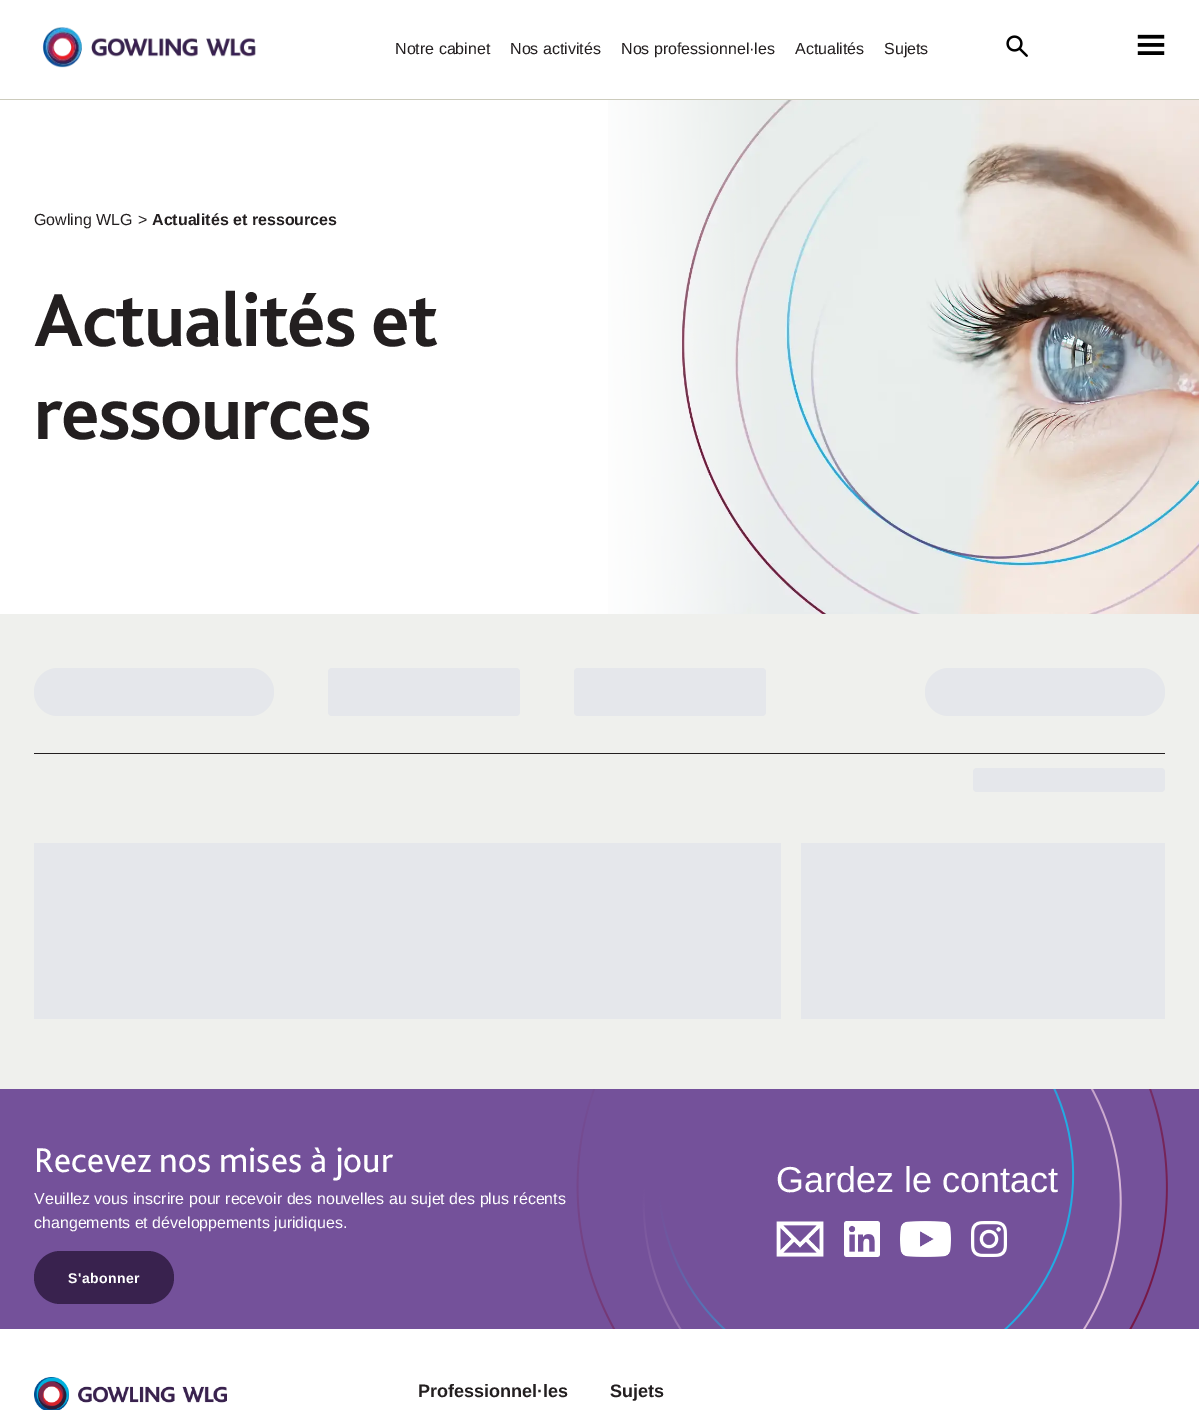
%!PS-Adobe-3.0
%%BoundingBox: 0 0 1199 1410
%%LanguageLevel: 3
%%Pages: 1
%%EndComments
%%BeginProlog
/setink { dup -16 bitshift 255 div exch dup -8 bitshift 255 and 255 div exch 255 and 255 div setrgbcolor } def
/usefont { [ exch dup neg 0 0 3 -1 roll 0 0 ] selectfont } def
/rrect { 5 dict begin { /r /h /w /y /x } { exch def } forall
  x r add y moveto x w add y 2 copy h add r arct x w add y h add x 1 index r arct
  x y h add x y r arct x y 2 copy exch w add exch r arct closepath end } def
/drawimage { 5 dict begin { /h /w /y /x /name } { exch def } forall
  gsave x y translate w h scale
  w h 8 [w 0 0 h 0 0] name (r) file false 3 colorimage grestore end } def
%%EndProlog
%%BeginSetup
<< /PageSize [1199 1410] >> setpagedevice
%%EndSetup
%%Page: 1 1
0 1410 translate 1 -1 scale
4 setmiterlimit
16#FFFFFF setink
0 0 1199 1410 rectfill
16#CCCBBC setink
0 99 1199 1 rectfill
(img1.raw) 42 27 214 41 drawimage
/LiberationSans-Regular 16 usefont
16#231F20 setink
[
    [(Notre cabinet) 395 54]
    [(Nos activités) 510 54]
    [(Nos professionnel·les) 621 54]
    [(Actualités) 795 54]
    [(Sujets) 884 54]
] { aload pop moveto show } forall
(img2.raw) 1006 35 22 22 drawimage
(img3.raw) 1137 34 28 21 drawimage
34 225 moveto (Gowling WLG) show
138 225 moveto (>) show
/LiberationSans-Bold 16 usefont
152 225 moveto (Actualités et ressources) show
/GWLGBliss-Bold 78 usefont
34 346 moveto -1.5 0 (Actualités et) ashow
34 439 moveto -1.5 0 (ressources) ashow
(img4.raw) 608 100 591 514 drawimage
16#EFF0ED setink
0 614 1199 475 rectfill
16#231F20 setink
34 753 1131 1 rectfill
16#E5E7EB setink
34 668 240 48 24 rrect fill
328 668 192 48 4 rrect fill
574 668 192 48 4 rrect fill
925 668 240 48 24 rrect fill
973 768 192 24 4 rrect fill
[
    [34 843 747 176 16#E5E7EB]
    [801 843 364 176 16#E5E7EB]
    [0 1089 1199 240 16#74519A]
] { aload pop setink rectfill } forall
/GWLGBliss-Regular 36 usefont
16#FFFFFF setink
34 1172 moveto (Recevez nos mises à jour) show
/LiberationSans-Regular 16 usefont
34 1204 moveto (Veuillez vous inscrire pour recevoir des nouvelles au sujet des plus récents) show
34 1228 moveto (changements et développements juridiques.) show
16#39224E setink
34 1251 140 53 26.5 rrect fill
/LiberationSans-Bold 14 usefont
16#FFFFFF setink
68 1283 moveto 0.5 0 (S'abonner) ashow
(img5.raw) 576 1089 592 240 drawimage
/LiberationSans-Regular 36 usefont
776 1192 moveto (Gardez le contact) show
(img6.raw) 776 1221 48 36 drawimage
(img7.raw) 844 1221 36 36 drawimage
(img8.raw) 900 1221 51 36 drawimage
(img9.raw) 971 1221 36 36 drawimage
(img10.raw) 34 1377 193 33 drawimage
/LiberationSans-Bold 18 usefont
16#231F20 setink
418 1397 moveto (Professionnel·les) show
610 1397 moveto (Sujets) show
showpage
%%EOF
